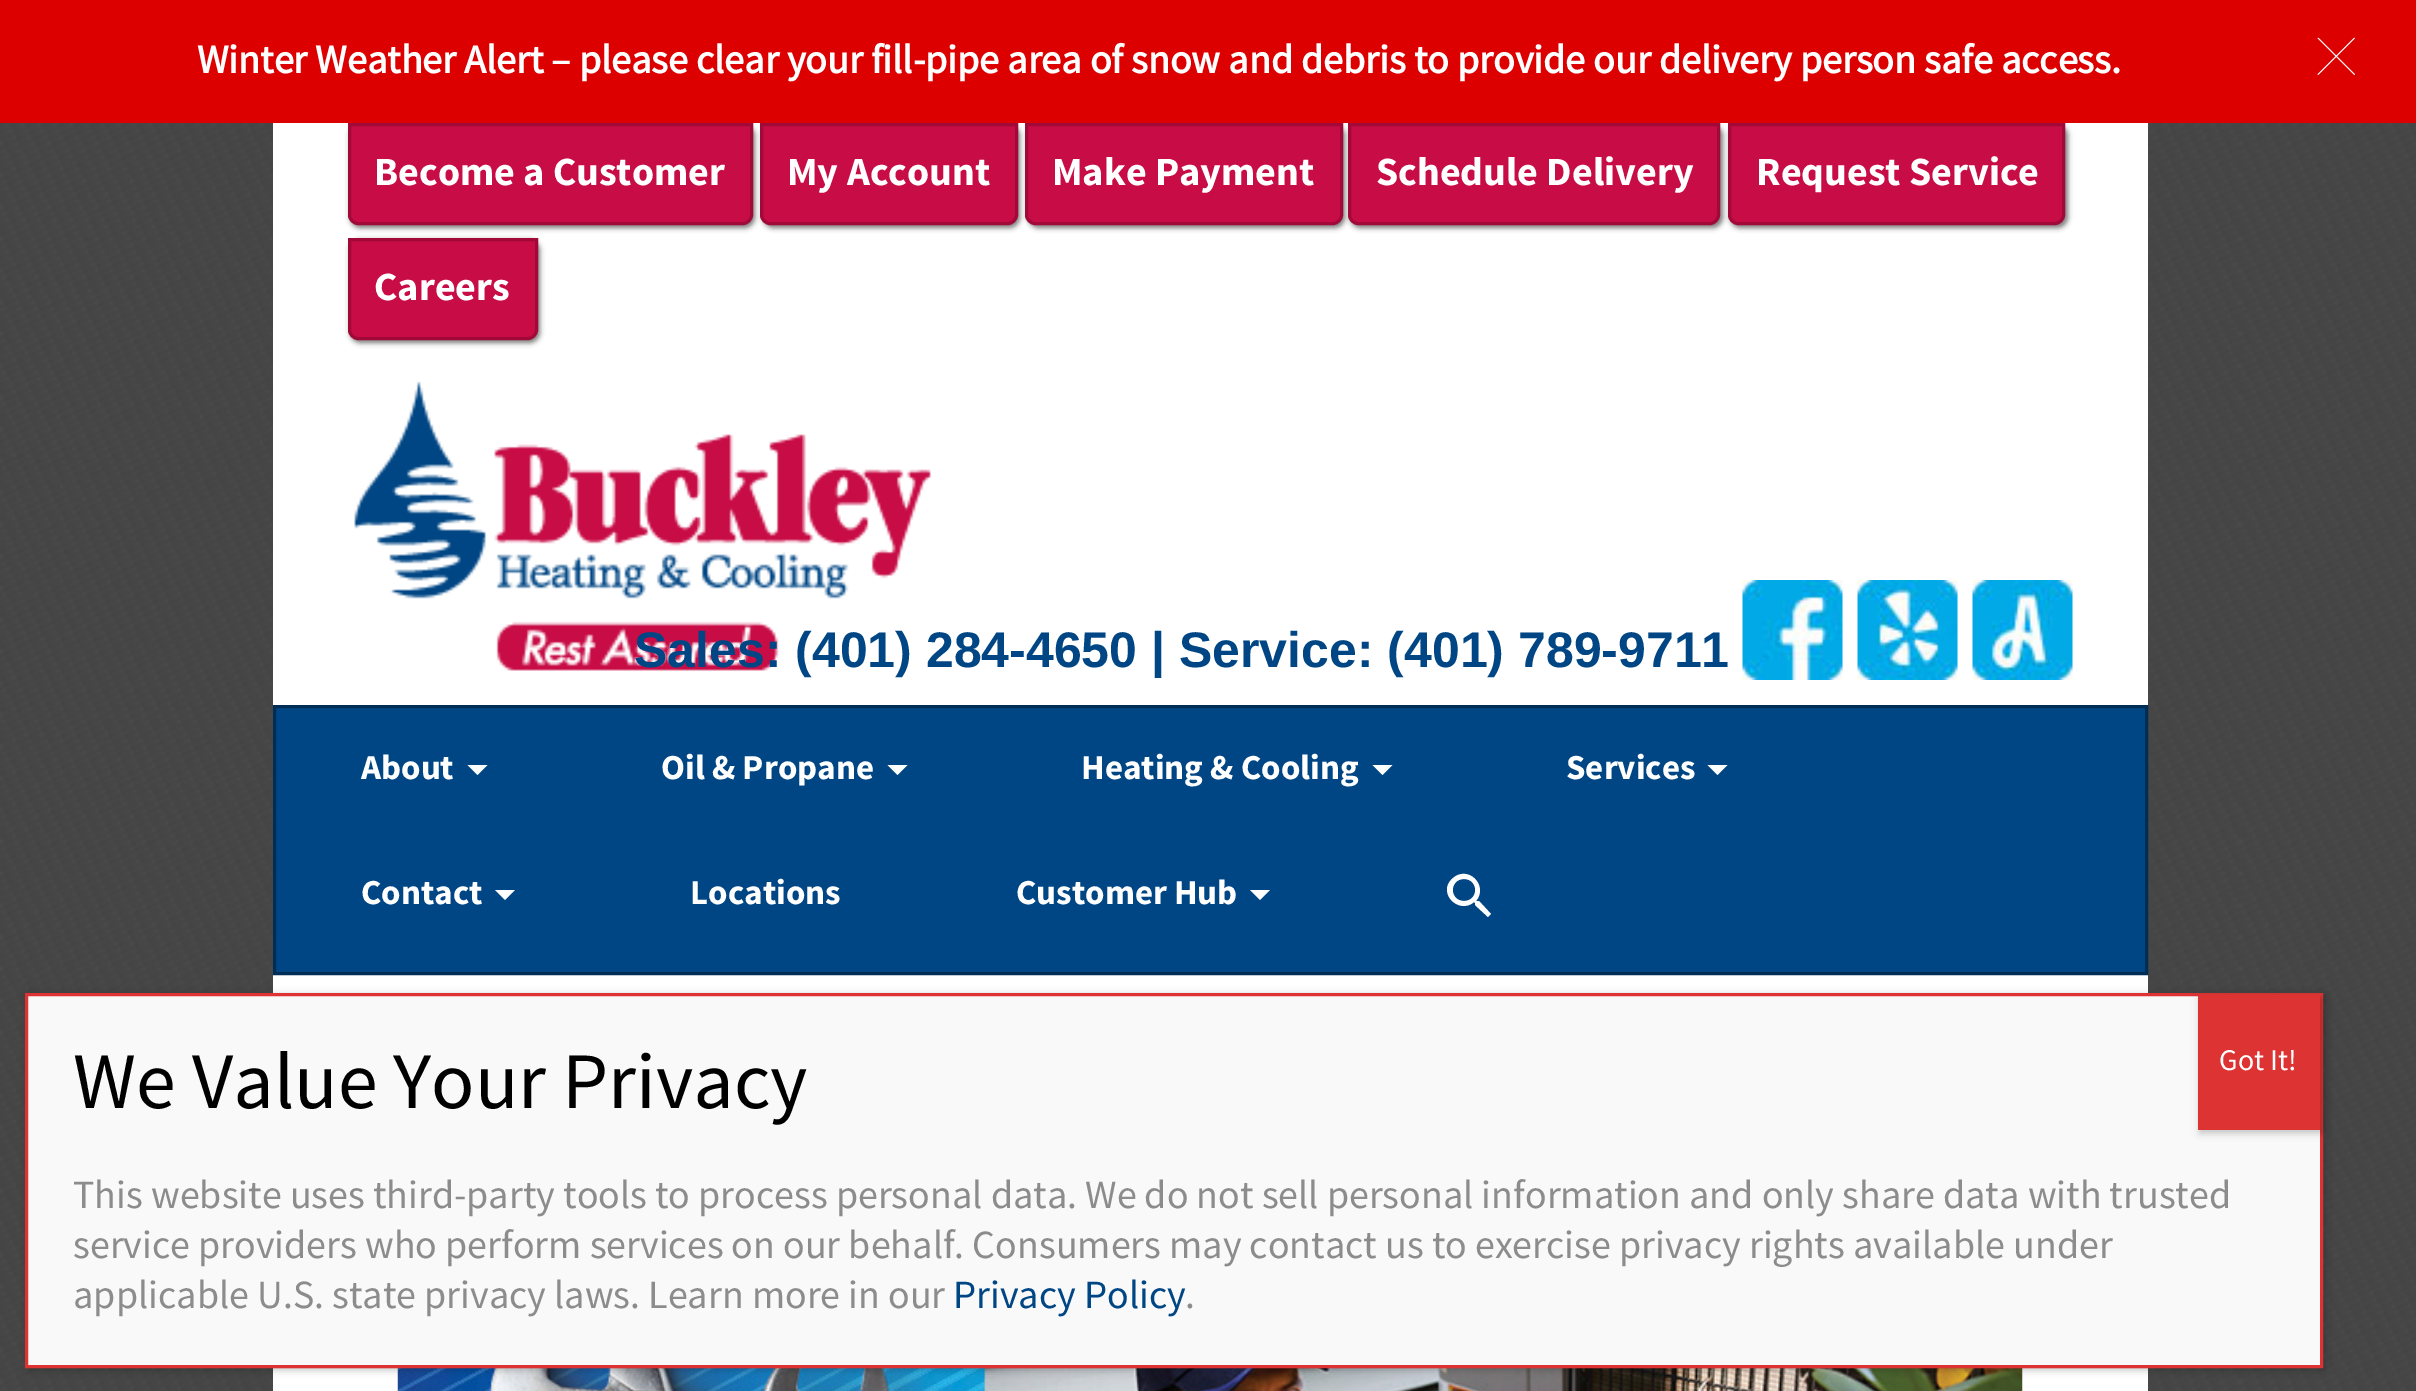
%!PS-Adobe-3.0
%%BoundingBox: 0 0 2416 1391
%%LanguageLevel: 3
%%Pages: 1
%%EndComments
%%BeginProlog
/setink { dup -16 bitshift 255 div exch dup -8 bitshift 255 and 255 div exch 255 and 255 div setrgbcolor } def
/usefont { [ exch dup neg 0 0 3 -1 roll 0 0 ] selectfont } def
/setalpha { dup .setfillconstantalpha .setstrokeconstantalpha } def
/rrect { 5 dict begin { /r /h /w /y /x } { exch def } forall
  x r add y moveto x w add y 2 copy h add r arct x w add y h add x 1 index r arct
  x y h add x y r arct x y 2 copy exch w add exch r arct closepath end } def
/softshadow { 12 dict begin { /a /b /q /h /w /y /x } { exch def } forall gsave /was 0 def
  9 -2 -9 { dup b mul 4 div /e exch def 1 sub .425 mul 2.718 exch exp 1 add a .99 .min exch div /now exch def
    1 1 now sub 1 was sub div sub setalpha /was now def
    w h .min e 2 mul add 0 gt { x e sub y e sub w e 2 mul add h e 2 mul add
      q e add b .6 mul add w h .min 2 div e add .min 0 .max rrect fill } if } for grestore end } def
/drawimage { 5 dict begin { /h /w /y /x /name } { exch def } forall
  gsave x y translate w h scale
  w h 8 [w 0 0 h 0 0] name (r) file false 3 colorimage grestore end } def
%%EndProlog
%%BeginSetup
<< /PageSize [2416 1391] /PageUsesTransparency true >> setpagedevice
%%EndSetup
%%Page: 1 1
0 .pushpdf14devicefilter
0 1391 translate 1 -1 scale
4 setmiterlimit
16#FFFFFF setink
0 0 2416 1391 rectfill
(img1.raw) 0 123 2416 1268 drawimage
273 123 1875 870 rectfill
16#000000 setink
350 125 405 103 10 2.5 0.5 softshadow
763 125 257 103 10 2.5 0.5 softshadow
1028 125 317 103 10 2.5 0.5 softshadow
16#C70C46 setink
1026.5 124.5 moveto 1341.5 124.5 lineto 1341.5 215 lineto 1341.5 219.5 1337.5 223.5 1333 223.5 curveto 1035 223.5 lineto 1030.5 223.5 1026.5 219.5 1026.5 215 curveto closepath gsave fill grestore
16#A10A38 setink
3 setlinewidth
stroke
16#000000 setink
1350 125 373 103 10 2.5 0.5 softshadow
1730 125 338 103 10 2.5 0.5 softshadow
16#DD0000 setink
0 0 2416 123 rectfill
/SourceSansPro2-Bold 40 usefont
16#FFFFFF setink
197 73 moveto (Winter Weather Alert – please clear your fill-pipe area of snow and debris to provide our delivery person safe access.) show
(img2.raw) 2317 37 38 38 drawimage
16#C70C46 setink
349.5 124.5 moveto 751.5 124.5 lineto 751.5 215 lineto 751.5 219.5 747.5 223.5 743 223.5 curveto 358 223.5 lineto 353.5 223.5 349.5 219.5 349.5 215 curveto closepath gsave fill grestore
16#A10A38 setink
stroke
/SourceSansPro-Bold 40 usefont
16#FFFFFF setink
374 185 moveto (Become a Customer) show
16#C70C46 setink
761.5 124.5 moveto 1016.5 124.5 lineto 1016.5 215 lineto 1016.5 219.5 1012.5 223.5 1008 223.5 curveto 770 223.5 lineto 765.5 223.5 761.5 219.5 761.5 215 curveto closepath gsave fill grestore
16#A10A38 setink
stroke
16#FFFFFF setink
787 185 moveto (My Account) show
1052 185 moveto (Make Payment) show
16#C70C46 setink
1349.5 124.5 moveto 1718.5 124.5 lineto 1718.5 215 lineto 1718.5 219.5 1714.5 223.5 1710 223.5 curveto 1358 223.5 lineto 1353.5 223.5 1349.5 219.5 1349.5 215 curveto closepath gsave fill grestore
16#A10A38 setink
stroke
16#FFFFFF setink
1376 185 moveto (Schedule Delivery) show
16#C70C46 setink
1729.5 124.5 moveto 2063.5 124.5 lineto 2063.5 215 lineto 2063.5 219.5 2059.5 223.5 2055 223.5 curveto 1738 223.5 lineto 1733.5 223.5 1729.5 219.5 1729.5 215 curveto closepath gsave fill grestore
16#A10A38 setink
stroke
16#FFFFFF setink
1756 185 moveto (Request Service) show
16#000000 setink
350 240 190 103 10 2.5 0.5 softshadow
16#C70C46 setink
349.5 239.5 moveto 536.5 239.5 lineto 536.5 330 lineto 536.5 334.5 532.5 338.5 528 338.5 curveto 358 338.5 lineto 353.5 338.5 349.5 334.5 349.5 330 curveto closepath gsave fill grestore
16#A10A38 setink
stroke
16#FFFFFF setink
374 300 moveto (Careers) show
(img3.raw) 354 381 577 290 drawimage
/LiberationSans-Bold 50 usefont
16#004684 setink
634 667 moveto (Sales: \(401\) 284-4650 | Service: \(401\) 789-9711) show
(img4.raw) 1742 580 101 100 drawimage
(img5.raw) 1857 580 101 100 drawimage
(img6.raw) 1972 580 101 100 drawimage
274.5 706.5 moveto 2146.5 706.5 lineto 2146.5 973.5 lineto 274.5 973.5 lineto closepath gsave fill grestore
16#002D55 setink
stroke
/SourceSansPro-Bold 35 usefont
16#FFFFFF setink
361 779 moveto (About) show
467.5 765 moveto 487.5 765 lineto 477.5 775 lineto closepath fill
661 779 moveto (Oil & Propane) show
887.5 765 moveto 907.5 765 lineto 897.5 775 lineto closepath fill
1081 779 moveto (Heating & Cooling) show
1372.5 765 moveto 1392.5 765 lineto 1382.5 775 lineto closepath fill
1566 779 moveto (Services) show
1707.5 765 moveto 1727.5 765 lineto 1717.5 775 lineto closepath fill
361 904 moveto (Contact) show
495 890 moveto 515 890 lineto 505 900 lineto closepath fill
690 904 moveto (Locations) show
1016 904 moveto (Customer Hub) show
1250 890 moveto 1270 890 lineto 1260 900 lineto closepath fill
1479 901 moveto 1477 901 lineto 1476 901 lineto 1489 885 1467 864 1452 879 curveto 1437 893 1459 915 1474 902 curveto 1475 903 lineto 1475 905 lineto 1488 917 lineto 1491 914 lineto closepath 1464 901 moveto 1449 901 1449 879 1464 879 curveto 1479 879 1479 901 1464 901 curveto closepath fill
273 1368 1875 23 rectfill
(img7.raw) 397 1368 1626 23 drawimage
16#020202 setink
28 995 2297 375 0 4 0.23 softshadow
16#F9F9F9 setink
26.5 994.5 moveto 2321.5 994.5 lineto 2321.5 1366.5 lineto 26.5 1366.5 lineto closepath gsave fill grestore
16#DD3333 setink
stroke
/SourceSansPro-Regular 80 usefont
16#000000 setink
73 1108 moveto (We Value Your Privacy) show
16#020202 setink
2200 998 123 135 0 4 0.23 softshadow
16#DD3333 setink
2198 995 122 135 rectfill
/SourceSansPro-Regular 30 usefont
16#FFFFFF setink
2219 1070 moveto (Got It!) show
/SourceSansPro-Regular 40 usefont
16#8C8C8C setink
[
    [(This website uses third-party tools to process personal data. We do not sell personal information and only share data with trusted) 73 1208]
    [(service providers who perform services on our behalf. Consumers may contact us to exercise privacy rights available under) 73 1258]
    [(applicable U.S. state privacy laws. Learn more in our) 73 1308]
] { aload pop moveto show } forall
16#004684 setink
953 1308 moveto (Privacy Policy) show
16#8C8C8C setink
1185 1308 moveto (.) show
.poppdf14devicefilter showpage
%%EOF
